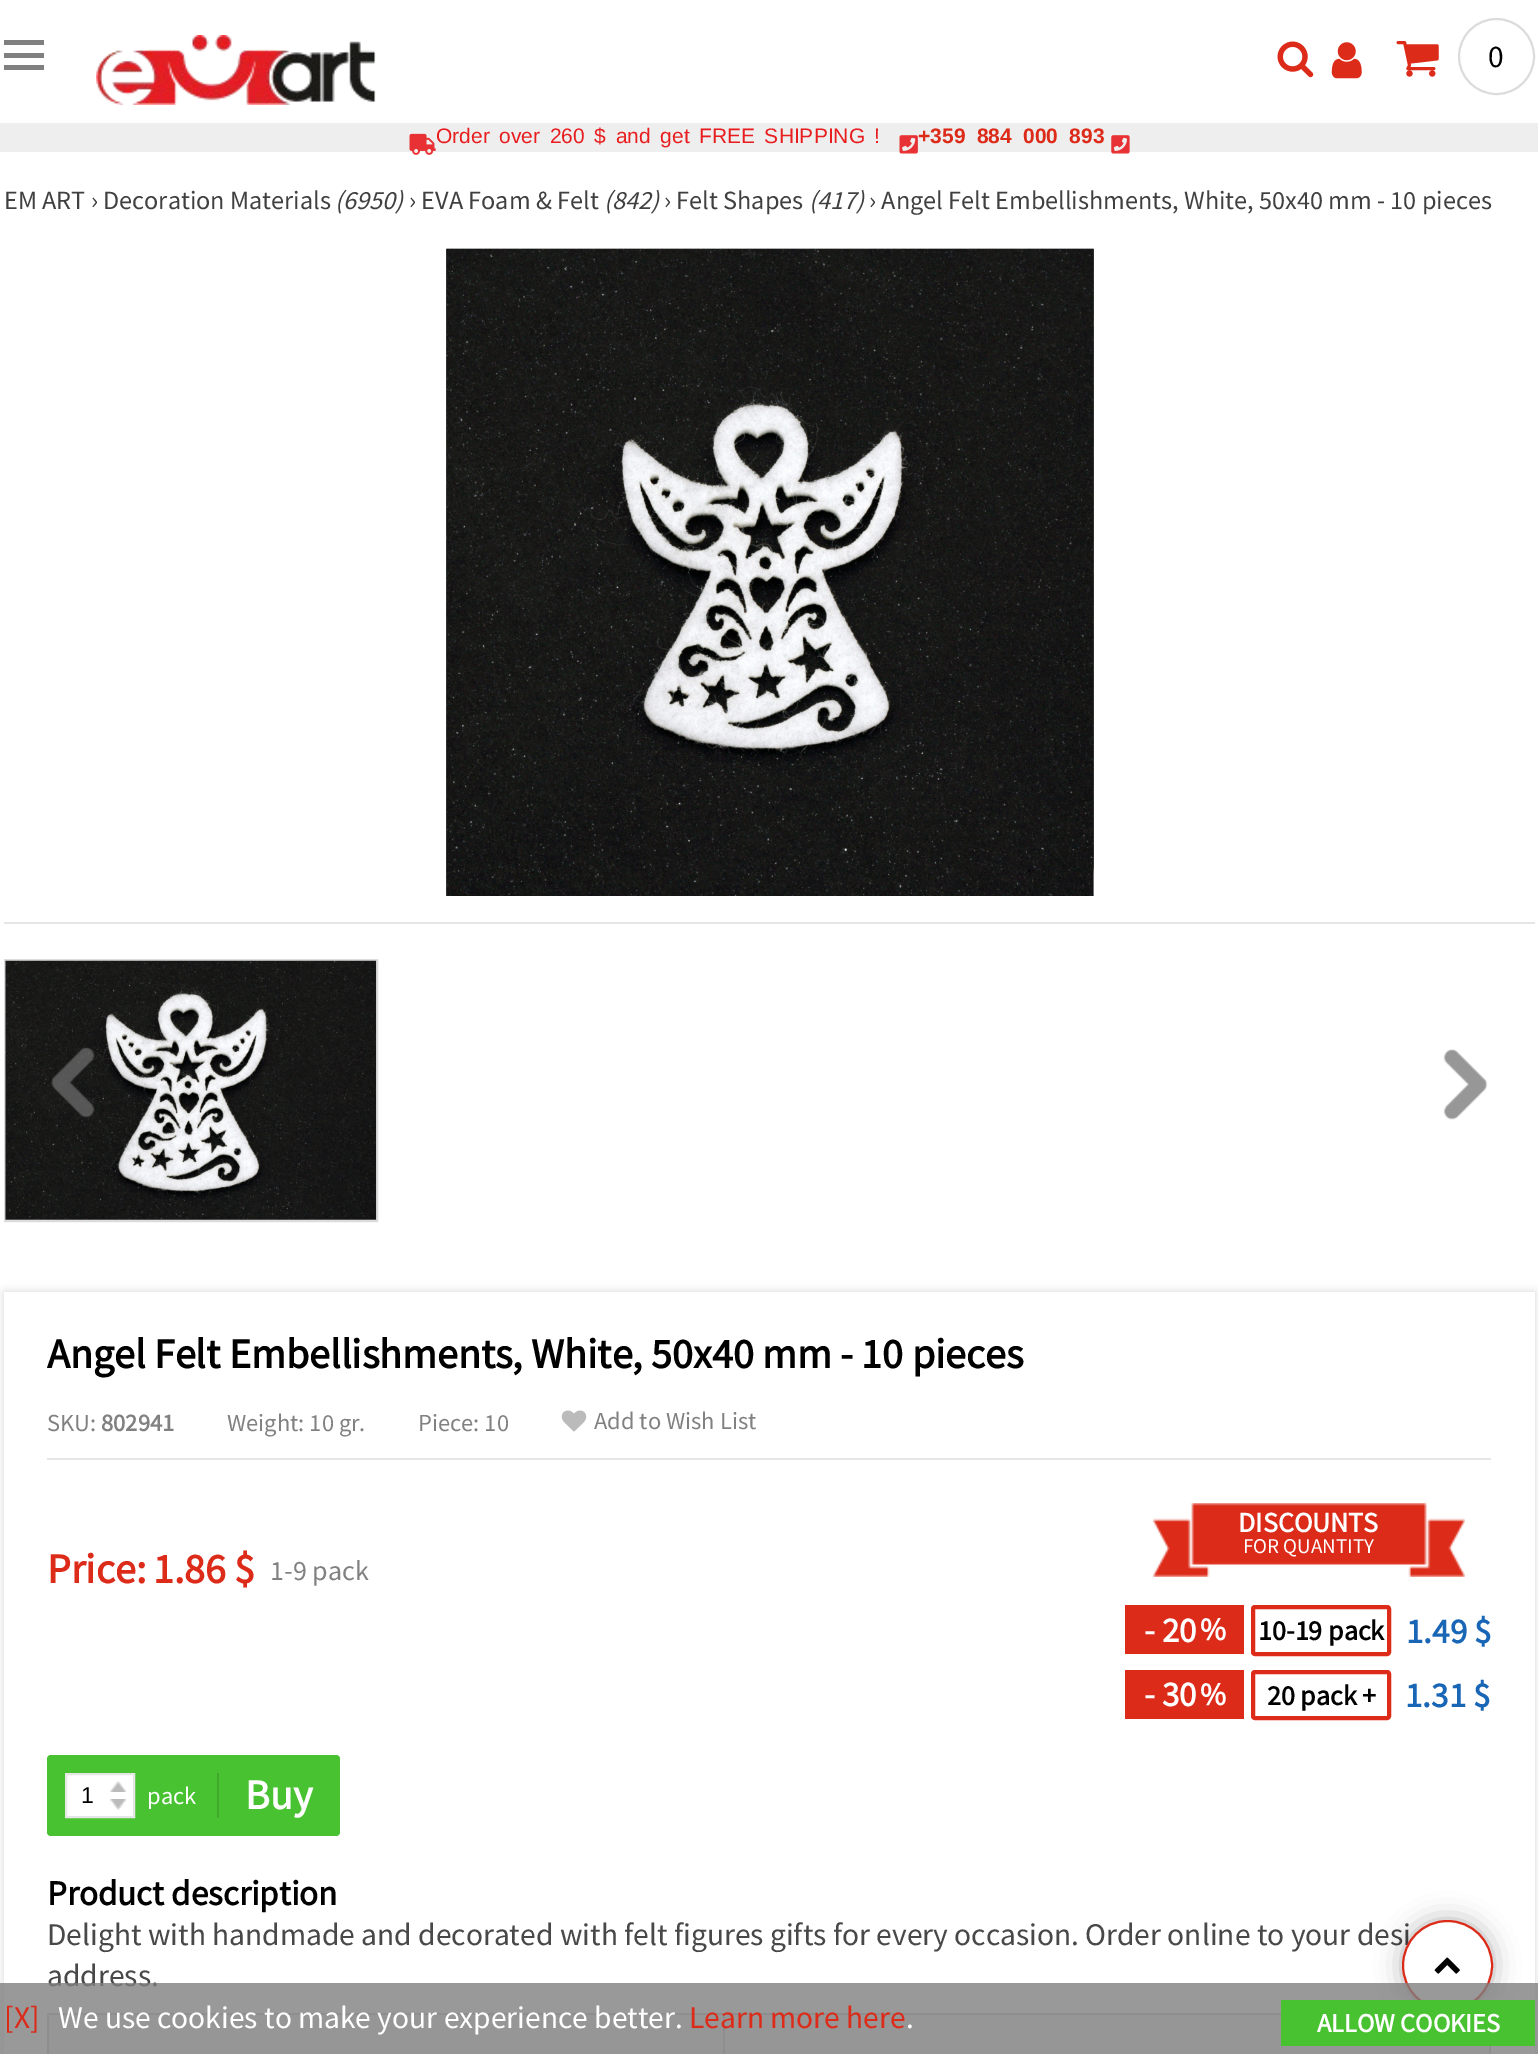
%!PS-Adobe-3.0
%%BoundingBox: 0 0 1538 2054
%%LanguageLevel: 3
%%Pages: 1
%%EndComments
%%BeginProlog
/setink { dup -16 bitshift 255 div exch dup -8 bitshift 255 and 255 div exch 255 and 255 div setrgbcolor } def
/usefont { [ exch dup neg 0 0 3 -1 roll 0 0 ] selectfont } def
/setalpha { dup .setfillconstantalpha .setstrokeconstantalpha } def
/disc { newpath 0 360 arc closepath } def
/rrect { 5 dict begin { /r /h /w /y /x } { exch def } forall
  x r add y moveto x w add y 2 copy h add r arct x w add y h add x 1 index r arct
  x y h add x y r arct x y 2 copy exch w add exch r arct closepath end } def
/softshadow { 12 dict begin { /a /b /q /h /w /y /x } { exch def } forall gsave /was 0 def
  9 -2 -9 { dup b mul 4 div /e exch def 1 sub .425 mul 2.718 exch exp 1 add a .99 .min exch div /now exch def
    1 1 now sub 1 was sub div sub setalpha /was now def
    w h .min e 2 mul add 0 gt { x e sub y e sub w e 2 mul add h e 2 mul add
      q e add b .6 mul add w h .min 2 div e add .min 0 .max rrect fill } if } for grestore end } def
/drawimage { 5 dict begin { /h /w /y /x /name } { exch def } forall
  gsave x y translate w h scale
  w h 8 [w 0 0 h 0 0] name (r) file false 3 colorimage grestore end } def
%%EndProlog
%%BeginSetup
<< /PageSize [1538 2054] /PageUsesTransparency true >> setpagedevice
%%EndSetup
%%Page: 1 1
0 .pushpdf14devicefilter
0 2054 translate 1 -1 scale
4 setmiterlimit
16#FFFFFF setink
0 0 1538 2054 rectfill
[
    [4 53 40 5 16#808080]
    [4 40 40 5 16#808080]
    [4 65 40 5 16#808080]
] { aload pop setink rectfill } forall
(img1.raw) 96 35 280 70 drawimage
(img2.raw) 1277 41 37 37 drawimage
(img3.raw) 1331 42 31 37 drawimage
(img4.raw) 1396 41 43 36 drawimage
16#DCDCDC setink
2 setlinewidth
1496.5 56.5 37.5 disc stroke
/SourceSansPro-Regular 31.5 usefont
16#000000 setink
1488 67 moveto (0) show
16#EEEEEE setink
0 123 1538 29 rectfill
(img5.raw) 409 133 27 22 drawimage
/LiberationSans-Regular 21 usefont
16#E81D1F setink
436 143 moveto 3.75 0 32 (Order over 260 $ and get FREE SHIPPING !) widthshow
(img6.raw) 899 135 19 19 drawimage
/LiberationSans-Bold 21 usefont
16#DC2B19 setink
918 143 moveto 5.5 0 32 (+359 884 000 893) widthshow
(img7.raw) 1111 135 19 19 drawimage
/SourceSansPro-Regular 26.25 usefont
16#404040 setink
4 209 moveto (EM ART › Decoration Materials) show
/SourceSansPro-Italic 26.25 usefont
335 209 moveto (\(6950\)) show
/SourceSansPro-Regular 26.25 usefont
409 209 moveto (› EVA Foam & Felt) show
/SourceSansPro-Italic 26.25 usefont
604 209 moveto (\(842\)) show
/SourceSansPro-Regular 26.25 usefont
664 209 moveto (› Felt Shapes) show
/SourceSansPro-Italic 26.25 usefont
809 209 moveto (\(417\)) show
/SourceSansPro-Regular 26.25 usefont
869 209 moveto (› Angel Felt Embellishments, White, 50x40 mm - 10 pieces) show
(img8.raw) 446 248 648 648 drawimage
(img9.raw) 446 248 648 648 drawimage
16#E6E6E6 setink
4 922 1531 2 rectfill
16#DCDCDC setink
5 960 372 261 rectstroke
(img10.raw) 5 960 372 260 drawimage
gsave
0 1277 moveto 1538 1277 lineto 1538 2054 lineto 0 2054 lineto closepath 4 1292 moveto 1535 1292 lineto 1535 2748 lineto 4 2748 lineto closepath eoclip newpath
16#000000 setink
4 1292 1531 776 0 4.5 0.15 softshadow
grestore
/SourceSansPro-Bold 42 usefont
16#000000 setink
47 1368 moveto (Angel Felt Embellishments, White, 50x40 mm - 10 pieces) show
16#E6E6E6 setink
47 1458 1444 2 rectfill
/SourceSansPro-Regular 24.5 usefont
16#818181 setink
47 1431 moveto (SKU:) show
/SourceSansPro-Bold 24.5 usefont
101 1431 moveto (802941) show
/SourceSansPro-Regular 24.5 usefont
227 1431 moveto (Weight: 10 gr.) show
418 1431 moveto (Piece: 10) show
(img11.raw) 561 1410 26 22 drawimage
594 1429 moveto (Add to Wish List) show
/SourceSansPro-Bold 42 usefont
16#DC2B19 setink
47 1583 moveto (Price:) show
153 1583 moveto (1.86 $) show
/SourceSansPro-Regular 28 usefont
16#818181 setink
270 1580 moveto (1-9 pack) show
(img12.raw) 1153 1503 312 74 drawimage
/SourceSansPro-Bold 28 usefont
16#FFFFFF setink
1238 1532 moveto (DISCOUNTS) show
/SourceSansPro-Regular 21 usefont
1243 1553 moveto (FOR QUANTITY) show
16#DC2B19 setink
1125 1605 119 49 rectfill
/SourceSansPro-Bold 35 usefont
16#FFFFFF setink
1144 1642 moveto (- 20) show
/SourceSansPro-Bold 31.5 usefont
1200 1640 moveto (%) show
16#DC2B19 setink
4 setlinewidth
1253 1607 136 47 2 rrect stroke
/SourceSansPro-Bold 28 usefont
16#000000 setink
1258 1640 moveto (10-19 pack) show
/SourceSansPro-Bold 35 usefont
16#1966B6 setink
1406 1643 moveto (1.49 $) show
16#DC2B19 setink
1125 1670 119 49 rectfill
16#FFFFFF setink
1144 1706 moveto (- 30) show
/SourceSansPro-Bold 31.5 usefont
1200 1705 moveto (%) show
16#DC2B19 setink
1253 1672 136 46 2 rrect stroke
/SourceSansPro-Bold 28 usefont
16#000000 setink
1267 1705 moveto (20 pack +) show
/SourceSansPro-Bold 35 usefont
16#1966B6 setink
1405 1707 moveto (1.31 $) show
16#48C231 setink
47 1755 293 81 4 rrect fill
16#FFFFFF setink
66 1774 moveto 134 1774 lineto 134 1817 lineto 66 1817 lineto closepath gsave fill grestore
16#E6E6E6 setink
2 setlinewidth
stroke
/LiberationSans-Regular 23 usefont
16#000000 setink
81 1803 moveto (1) show
(img13.raw) 110 1781 16 11 drawimage
/SourceSansPro-Regular 24.5 usefont
16#FFFFFF setink
147 1804 moveto (pack) show
(img14.raw) 110 1799 16 11 drawimage
16#3FA82B setink
217 1773 2 45 rectfill
/SourceSansPro-Bold 42 usefont
16#FFFFFF setink
245 1809 moveto (Buy) show
/SourceSansPro-Bold 35 usefont
16#000000 setink
47 1905 moveto (Product description) show
/SourceSansPro-Regular 31.5 usefont
16#484848 setink
47 1945 moveto (Delight with handmade and decorated with felt figures gifts for every occasion. Order online to your desi) show
47 1986 moveto (address.) show
[
    [49 2015 674 39 16#F0F0F0]
    [723 2013 558 2 16#CCCCCC]
    [723 2013 2 41 16#CCCCCC]
    [47 2013 678 2 16#CCCCCC]
    [47 2013 2 41 16#CCCCCC]
    [725 2015 764 39 16#F0F0F0]
    [1489 2046 2 8 16#CCCCCC]
] { aload pop setink rectfill } forall
(img15.raw) 51 1047 44 71 drawimage
(img16.raw) 1443 1049 45 71 drawimage
16#000000 setink
1402 1920 91 91 45.5 13 0.3 softshadow
16#FFFFFF setink
1447.5 1965.5 44.5 disc gsave fill grestore
16#DC2B19 setink
stroke
(img17.raw) 1434 1957 26 17 drawimage
0.8 setalpha
16#7F7F7F setink
0 1983 1538 71 rectfill
1 setalpha
16#DC2B19 setink
4 2028 moveto ([X]) show
16#FFFFFF setink
58 2028 moveto (We use cookies to make your experience better.) show
16#DC2B19 setink
689 2028 moveto (Learn more here) show
16#FFFFFF setink
906 2028 moveto (.) show
16#48C231 setink
1281 2000 254 46 rectfill
/SourceSansPro-Bold 26.25 usefont
16#FFFFFF setink
1317 2032 moveto (ALLOW COOKIES) show
.poppdf14devicefilter showpage
%%EOF
